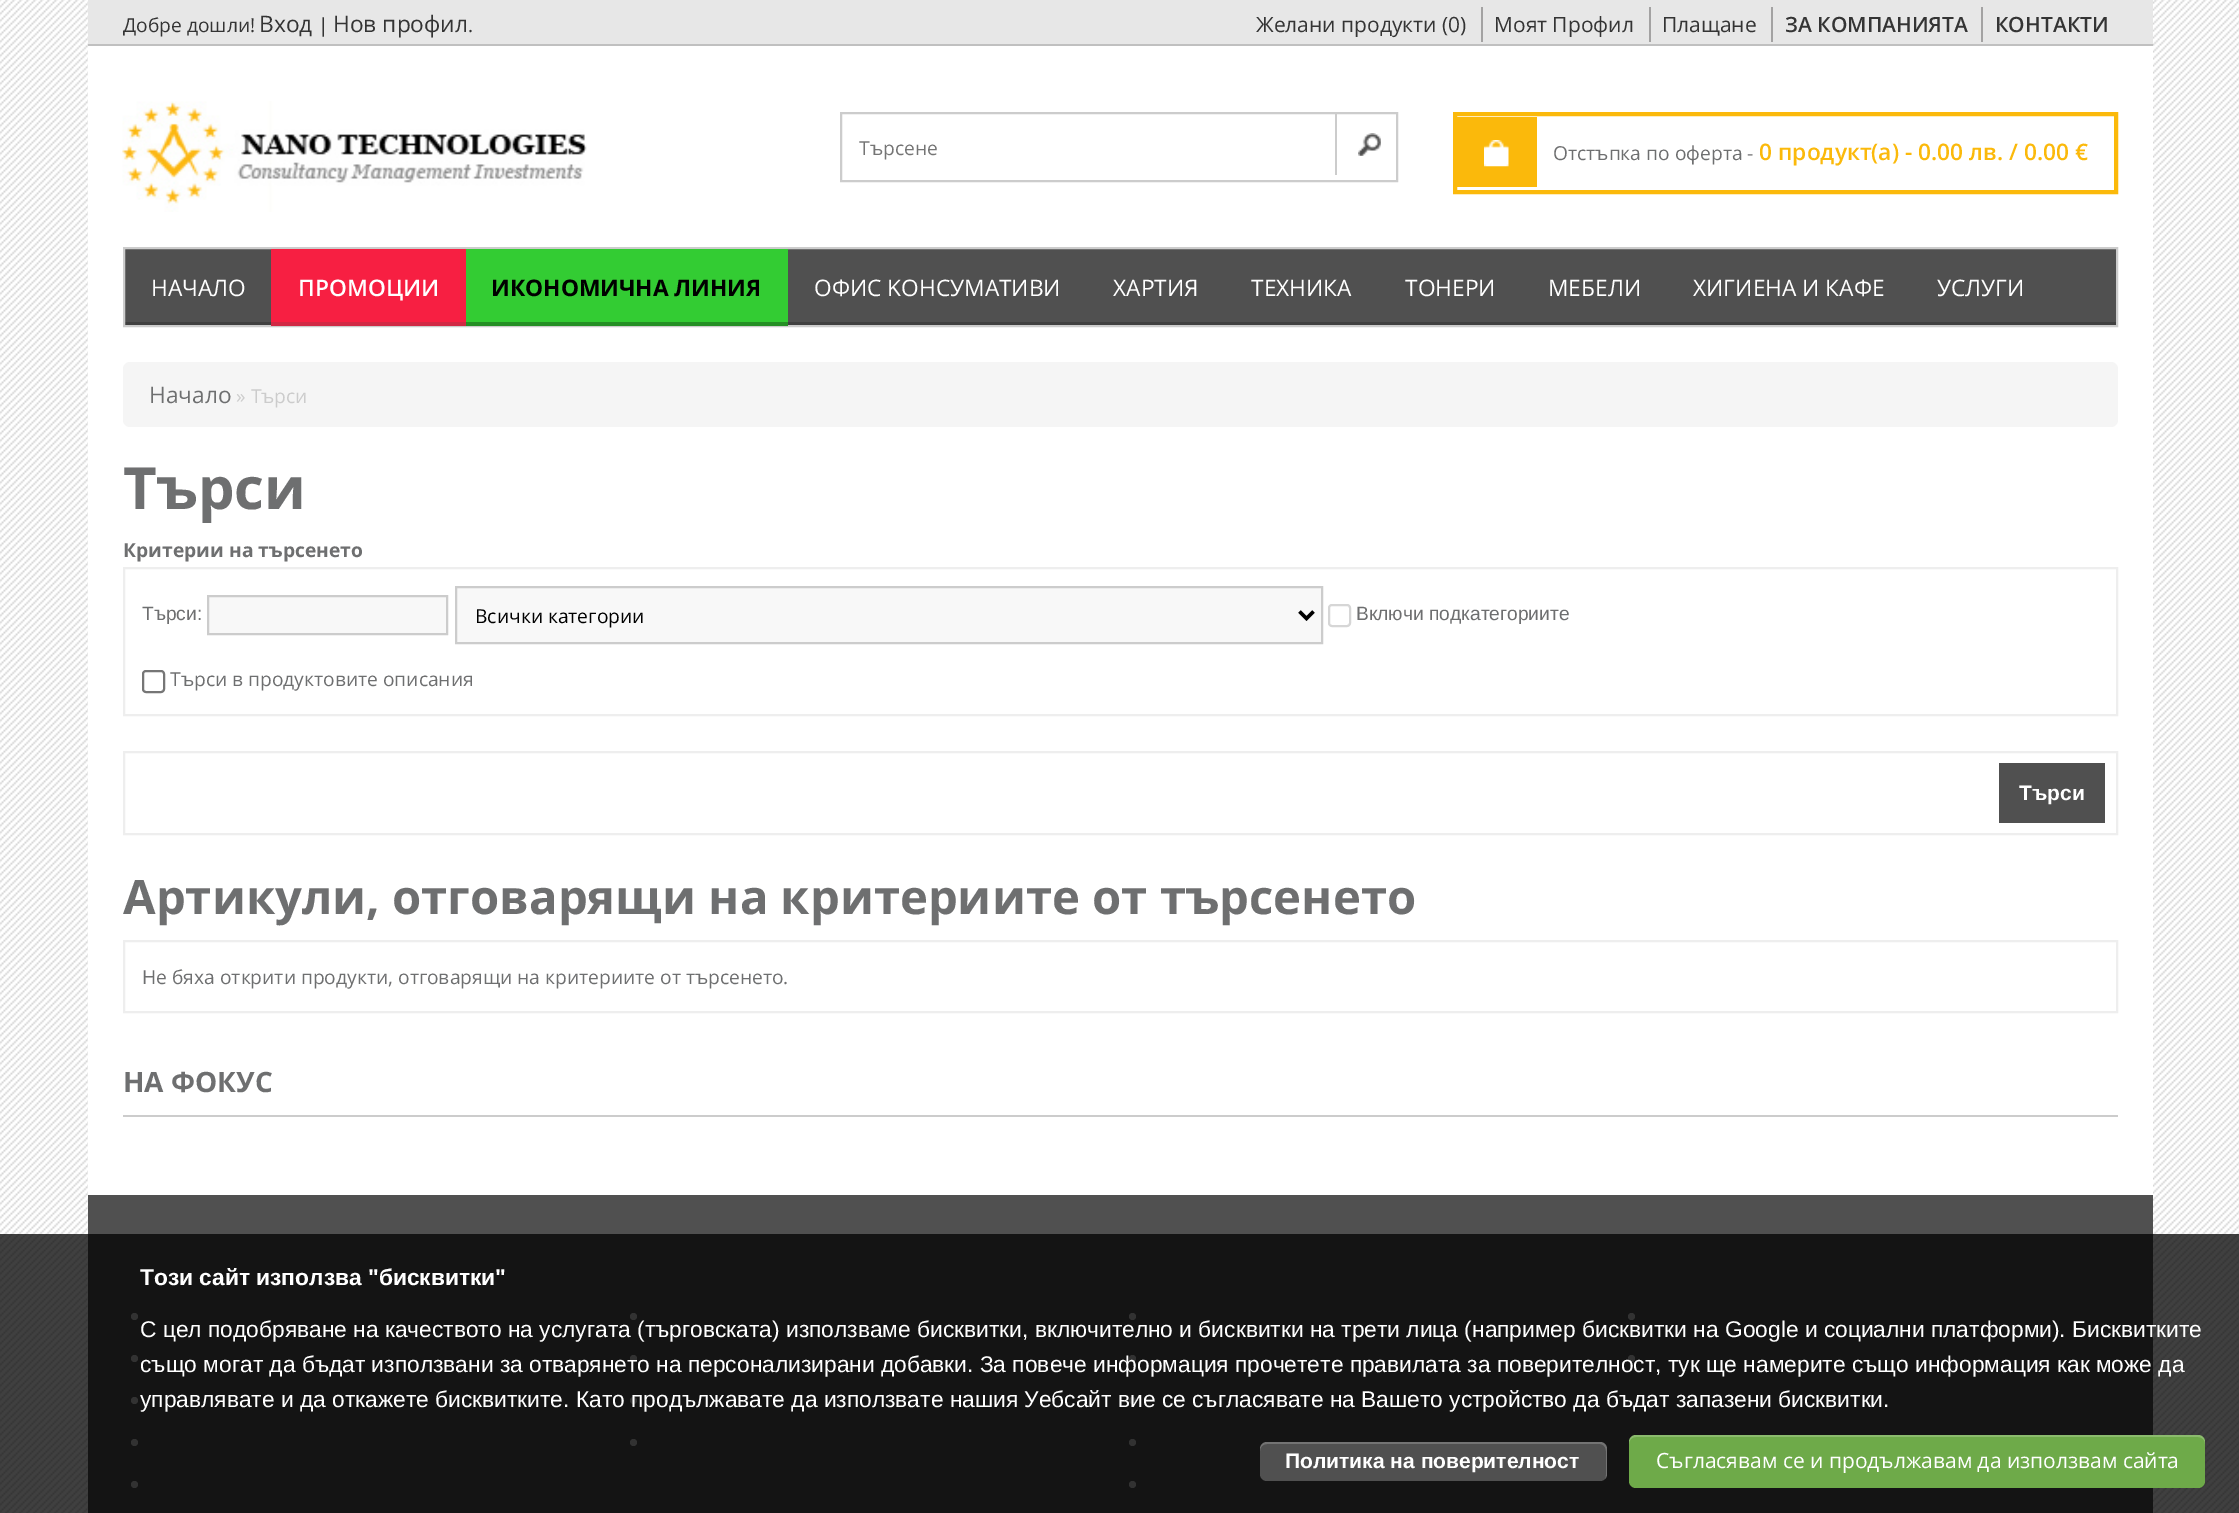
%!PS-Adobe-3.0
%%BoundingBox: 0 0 2239 1513
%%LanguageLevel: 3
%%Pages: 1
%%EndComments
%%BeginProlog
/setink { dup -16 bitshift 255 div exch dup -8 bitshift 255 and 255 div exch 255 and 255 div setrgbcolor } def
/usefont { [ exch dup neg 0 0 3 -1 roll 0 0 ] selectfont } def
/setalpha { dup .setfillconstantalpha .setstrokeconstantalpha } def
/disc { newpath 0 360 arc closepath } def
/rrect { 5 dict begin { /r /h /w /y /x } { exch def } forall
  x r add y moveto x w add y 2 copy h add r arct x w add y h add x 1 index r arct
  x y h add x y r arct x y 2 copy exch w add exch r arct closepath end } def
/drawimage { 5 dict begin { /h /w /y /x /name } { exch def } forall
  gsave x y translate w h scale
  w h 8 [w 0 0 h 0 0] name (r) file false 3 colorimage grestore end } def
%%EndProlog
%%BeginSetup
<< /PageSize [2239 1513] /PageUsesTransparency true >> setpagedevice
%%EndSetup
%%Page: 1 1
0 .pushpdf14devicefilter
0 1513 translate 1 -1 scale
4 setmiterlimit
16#FFFFFF setink
0 0 2239 1513 rectfill
(img1.raw) 0 0 2239 1513 drawimage
88 46 2065 1149 rectfill
16#E7E7E7 setink
88 0 2065 44 rectfill
/OpenSans-Regular 19.25 usefont
16#343434 setink
123 32 moveto (Добре дошли!) show
/OpenSans-Regular 22.75 usefont
259 32 moveto (Вход) show
/OpenSans-Regular 19.25 usefont
318 32 moveto (|) show
/OpenSans-Regular 22.75 usefont
333 32 moveto (Нов профил) show
/OpenSans-Regular 19.25 usefont
468 32 moveto (.) show
16#C0C0C0 setink
88 44 2065 2 rectfill
/OpenSans-Regular 21 usefont
16#343434 setink
1256 32 moveto (Желани продукти \(0\)) show
16#A3A2A2 setink
1481 7 2 35 rectfill
16#343434 setink
1494 32 moveto (Моят Профил) show
16#A3A2A2 setink
1649 7 2 35 rectfill
16#343434 setink
1662 32 moveto (Плащане) show
16#A3A2A2 setink
1771 7 2 35 rectfill
/OpenSans-SemiBold 21 usefont
16#343434 setink
1785 32 moveto (ЗА КОМПАНИЯТА) show
16#A3A2A2 setink
1981 7 2 35 rectfill
16#343434 setink
1995 32 moveto (КОНТАКТИ) show
(img2.raw) 122 101 465 111 drawimage
16#CCCCCC setink
2 setlinewidth
841 113 556 68 rectstroke
/OpenSans-Regular 19.25 usefont
16#757575 setink
859 155 moveto (Търсене) show
(img3.raw) 1358 133 23 23 drawimage
16#CCCCCC setink
1335 112 2 63 rectfill
16#FBB90B setink
4 setlinewidth
1455 114 661 78 rectstroke
1457 117 80 70 rectfill
(img4.raw) 1484 140 25 27 drawimage
16#6E6F70 setink
1553 160 moveto (Отстъпка по оферта -) show
/OpenSans-SemiBold 22.75 usefont
16#FBB90B setink
1759 160 moveto (0 продукт\(а\) - 0.00 лв. / 0.00 €) show
16#505050 setink
125 249 1991 73 rectfill
16#404040 setink
124 322 1992 3 rectfill
16#CCCCCC setink
2 setlinewidth
124 248 1993 78 rectstroke
/OpenSans-Regular 22.75 usefont
16#FFFFFF setink
151 296 moveto (НАЧАЛО) show
16#F71F42 setink
271 249 195 73 rectfill
16#D12844 setink
271 322 195 4 rectfill
/OpenSans-SemiBold 22.75 usefont
16#FFFFFF setink
298 296 moveto (ПРОМОЦИИ) show
16#33CC33 setink
466 249 322 73 rectfill
16#248F24 setink
466 322 322 4 rectfill
/OpenSans-Bold 22.75 usefont
16#000000 setink
491 296 moveto (ИКОНОМИЧНА ЛИНИЯ) show
/OpenSans-Regular 22.75 usefont
16#FFFFFF setink
[
    [(ОФИС KОНСУМАТИВИ) 814 296]
    [(ХАРТИЯ) 1113 296]
    [(ТЕХНИКА) 1251 296]
    [(ТОНЕРИ) 1405 296]
    [(МЕБЕЛИ) 1548 296]
    [(ХИГИЕНА И КАФЕ) 1693 296]
    [(УСЛУГИ) 1937 296]
] { aload pop moveto show } forall
16#F5F5F5 setink
123 362 1995 65 7 rrect fill
16#6E6F70 setink
149 403 moveto (Начало) show
/OpenSans-Regular 19.25 usefont
16#CCCCCC setink
236 403 moveto (» Търси) show
/OpenSans-Bold 58 usefont
16#6E6F70 setink
123 509 moveto (Търси) show
/OpenSans-Bold 19.25 usefont
123 557 moveto (Критерии на търсенето) show
16#EEEEEE setink
124 568 1993 147 rectstroke
/LiberationSans-Regular 19.25 usefont
16#6E6F70 setink
142 620 moveto (Търси:) show
16#F8F8F8 setink
208 596 moveto 447 596 lineto 447 634 lineto 208 634 lineto closepath gsave fill grestore
16#CCCCCC setink
stroke
16#F8F8F8 setink
456 587 moveto 1322 587 lineto 1322 643 lineto 456 643 lineto closepath gsave fill grestore
16#CCCCCC setink
stroke
16#000000 setink
3.5 setlinewidth
1299.5 611.5 moveto 1306.5 618.5 lineto 1313.5 611.5 lineto stroke
/OpenSans-Regular 19.25 usefont
475 623 moveto (Всички категории) show
16#D6D6D6 setink
2 setlinewidth
1329 605 21 21 3 rrect stroke
/LiberationSans-Regular 19.25 usefont
16#6E6F70 setink
1356 620 moveto (Включи подкатегориите) show
16#767676 setink
143 671 21 21 3 rrect stroke
/OpenSans-Regular 19.25 usefont
16#6E6F70 setink
170 686 moveto (Търси в продуктовите описания) show
16#EEEEEE setink
124 752 1993 82 rectstroke
16#505050 setink
1999 763 106 60 rectfill
/LiberationSans-Bold 21 usefont
16#FFFFFF setink
2019 800 moveto (Търси) show
/OpenSans-Bold 47.25 usefont
16#6E6F70 setink
123 914 moveto (Артикули, отговарящи на критериите от търсенето) show
16#EEEEEE setink
124 941 1993 71 rectstroke
/OpenSans-Regular 19.25 usefont
16#6E6F70 setink
142 984 moveto (Не бяха открити продукти, отговарящи на критериите от търсенето.) show
16#CCCCCC setink
123 1115 1995 2 rectfill
/OpenSans-Bold 28 usefont
16#6E6F70 setink
123 1092 moveto (НА ФОКУС) show
16#505050 setink
88 1195 2065 318 rectfill
16#C6C6C6 setink
134.5 1316.5 3.5 disc fill
134.5 1358.5 3.5 disc fill
134.5 1400.5 3.5 disc fill
134.5 1442.5 3.5 disc fill
134.5 1484.5 3.5 disc fill
633.5 1316.5 3.5 disc fill
633.5 1358.5 3.5 disc fill
633.5 1400.5 3.5 disc fill
633.5 1442.5 3.5 disc fill
1132.5 1316.5 3.5 disc fill
1132.5 1358.5 3.5 disc fill
1132.5 1400.5 3.5 disc fill
1132.5 1442.5 3.5 disc fill
1132.5 1484.5 3.5 disc fill
1631.5 1316.5 3.5 disc fill
1631.5 1358.5 3.5 disc fill
0.75 setalpha
16#000000 setink
0 1234 2239 279 rectfill
/LiberationSans-Bold 22.75 usefont
1 setalpha
16#FFFFFF setink
140 1285 moveto (Този сайт използва "бисквитки") show
/LiberationSans-Regular 22.75 usefont
[
    [(С цел подобряване на качеството на услугата \(търговската\) използваме бисквитки, включително и бисквитки на трети лица \(например бисквитки на Google и социални платформи\). Бисквитките) 140 1337]
    [(също могат да бъдат използвани за отварянето на персонализирани добавки. За повече информация прочетете правилата за поверителност, тук ще намерите също информация как може да) 140 1372]
    [(управлявате и да откажете бисквитките. Като продължавате да използвате нашия Уебсайт вие се съгласявате на Вашето устройство да бъдат запазени бисквитки.) 140 1407]
] { aload pop moveto show } forall
16#505050 setink
1260 1442 347 39 7 rrect fill
0.2 setalpha
16#FFFFFF setink
1267 1444 moveto 1600 1444 lineto 1603 1444 1606 1447 1606 1451 curveto 1606 1475 lineto 1606 1477 1606 1478 1605 1479 curveto 1606 1478 1607 1476 1607 1474 curveto 1607 1449 lineto 1607 1445 1604 1442 1600 1442 curveto 1267 1442 lineto 1263 1442 1260 1445 1260 1449 curveto 1260 1451 lineto 1260 1447 1263 1444 1267 1444 curveto closepath fill
/LiberationSans-Bold 21 usefont
1 setalpha
1285 1468 moveto (Политика на поверителност) show
16#6EAA49 setink
1629 1435 576 53 7 rrect fill
0.2 setalpha
16#FFFFFF setink
1636 1437 moveto 2198 1437 lineto 2202 1437 2205 1440 2205 1444 curveto 2205 1442 lineto 2205 1438 2202 1435 2198 1435 curveto 1636 1435 lineto 1632 1435 1629 1438 1629 1442 curveto 1629 1444 lineto 1629 1440 1632 1437 1636 1437 curveto closepath fill
/OpenSans-Regular 21 usefont
1 setalpha
1656 1468 moveto (Съгласявам се и продължавам да използвам сайта) show
.poppdf14devicefilter showpage
%%EOF
